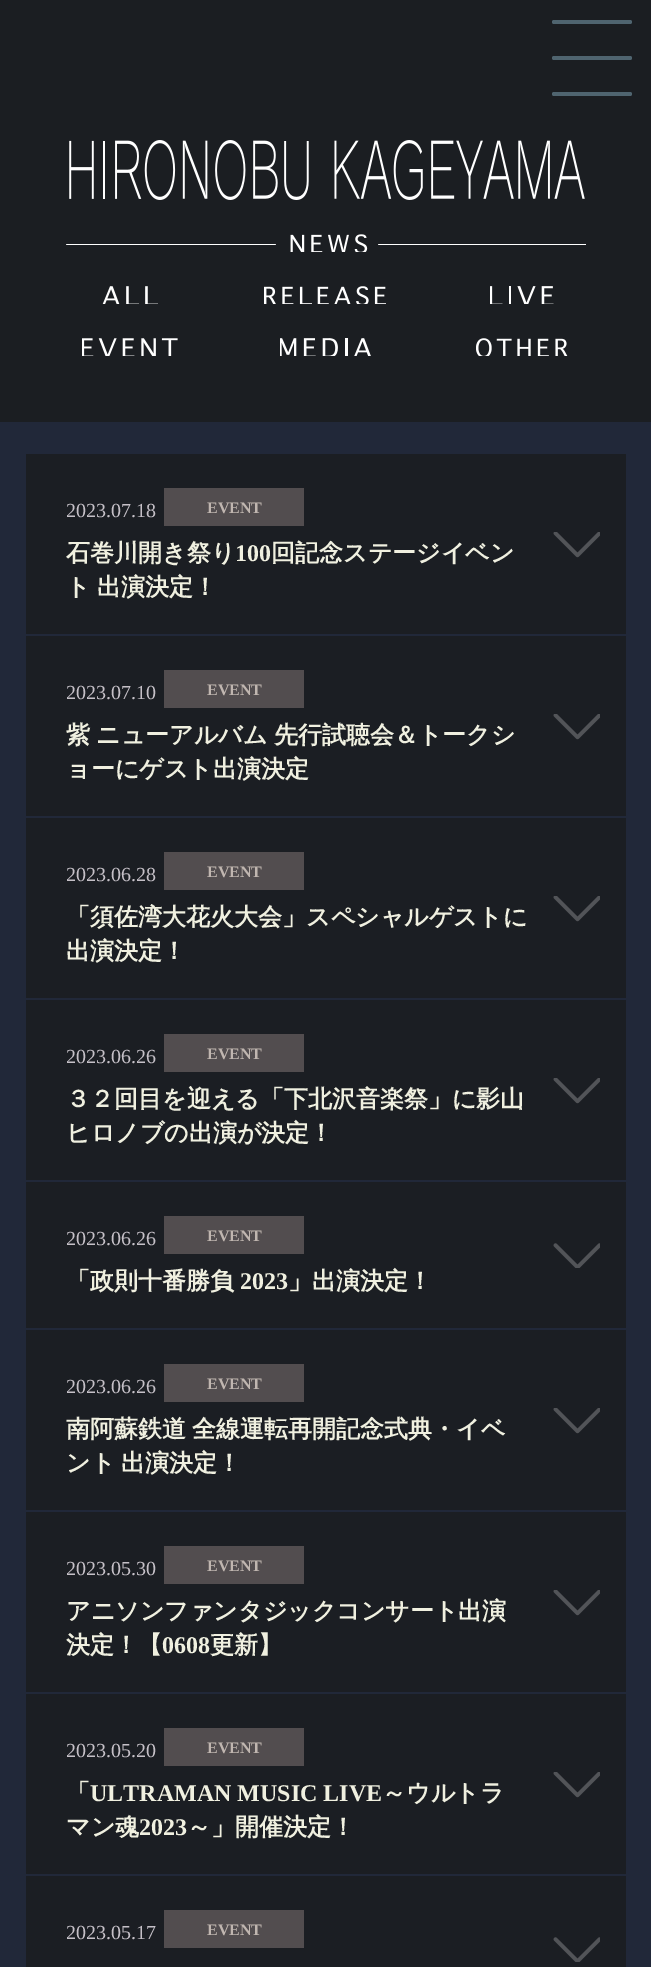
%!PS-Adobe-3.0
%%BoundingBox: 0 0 651 1967
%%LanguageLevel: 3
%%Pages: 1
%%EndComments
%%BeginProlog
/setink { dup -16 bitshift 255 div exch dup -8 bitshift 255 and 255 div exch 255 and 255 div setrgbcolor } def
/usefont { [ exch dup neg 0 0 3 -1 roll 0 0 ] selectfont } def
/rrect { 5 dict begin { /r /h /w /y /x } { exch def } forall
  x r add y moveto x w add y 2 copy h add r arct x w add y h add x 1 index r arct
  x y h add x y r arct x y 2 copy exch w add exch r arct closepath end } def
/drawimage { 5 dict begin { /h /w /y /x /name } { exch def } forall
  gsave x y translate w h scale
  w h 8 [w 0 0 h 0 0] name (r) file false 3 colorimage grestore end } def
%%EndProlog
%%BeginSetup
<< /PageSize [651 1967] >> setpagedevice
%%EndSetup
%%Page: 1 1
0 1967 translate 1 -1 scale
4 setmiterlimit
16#212839 setink
0 0 651 1967 rectfill
16#1B1E22 setink
0 0 651 422 rectfill
16#4F646F setink
552 20 80 4 2 rrect fill
552 56 80 4 2 rrect fill
552 92 80 4 2 rrect fill
(img1.raw) 69 140 516 60 drawimage
(img2.raw) 66 234 520 18 drawimage
(img3.raw) 102 286 56 18 drawimage
(img4.raw) 264 286 122 18 drawimage
(img5.raw) 490 286 64 18 drawimage
(img6.raw) 82 338 96 18 drawimage
(img7.raw) 280 338 91 18 drawimage
(img8.raw) 476 338 92 18 drawimage
16#1B1E23 setink
26 454 600 180 rectfill
/LiberationSerif-Regular 20 usefont
16#C5C0C7 setink
66 517 moveto (2023.07.18) show
16#524D4F setink
164 488 140 38 rectfill
/LiberationSerif-Bold 16 usefont
16#C0B6B0 setink
207 513 moveto (EVENT) show
/WenQuanYiZenHei-Bold 24 usefont
16#F0F0E0 setink
66 561 moveto (石巻川開き祭り) show
/LiberationSerif-Bold 24 usefont
235 561 moveto (100) show
/WenQuanYiZenHei-Bold 24 usefont
271 561 moveto (回記念ステージイベン) show
66 595 moveto -1 0 32 (ト 出演決定！) widthshow
(img9.raw) 553 532 47 26 drawimage
16#1B1E23 setink
26 636 600 180 rectfill
/LiberationSerif-Regular 20 usefont
16#C5C0C7 setink
66 699 moveto (2023.07.10) show
16#524D4F setink
164 670 140 38 rectfill
/LiberationSerif-Bold 16 usefont
16#C0B6B0 setink
207 695 moveto (EVENT) show
/WenQuanYiZenHei-Bold 24 usefont
16#F0F0E0 setink
66 743 moveto -1 0 32 (紫 ニューアルバム 先行試聴会＆トークシ) widthshow
66 777 moveto (ョーにゲスト出演決定) show
(img9.raw) 553 714 47 26 drawimage
16#1B1E23 setink
26 818 600 180 rectfill
/LiberationSerif-Regular 20 usefont
16#C5C0C7 setink
66 881 moveto (2023.06.28) show
16#524D4F setink
164 852 140 38 rectfill
/LiberationSerif-Bold 16 usefont
16#C0B6B0 setink
207 877 moveto (EVENT) show
/WenQuanYiZenHei-Bold 24 usefont
16#F0F0E0 setink
66 925 moveto (「須佐湾大花火大会」スペシャルゲストに) show
66 959 moveto (出演決定！) show
(img9.raw) 553 896 47 26 drawimage
16#1B1E23 setink
26 1000 600 180 rectfill
/LiberationSerif-Regular 20 usefont
16#C5C0C7 setink
66 1063 moveto (2023.06.26) show
16#524D4F setink
164 1034 140 38 rectfill
/LiberationSerif-Bold 16 usefont
16#C0B6B0 setink
207 1059 moveto (EVENT) show
/WenQuanYiZenHei-Bold 24 usefont
16#F0F0E0 setink
66 1107 moveto (３２回目を迎える「下北沢音楽祭」に影山) show
66 1141 moveto (ヒロノブの出演が決定！) show
(img9.raw) 553 1078 47 26 drawimage
16#1B1E23 setink
26 1182 600 146 rectfill
/LiberationSerif-Regular 20 usefont
16#C5C0C7 setink
66 1245 moveto (2023.06.26) show
16#524D4F setink
164 1216 140 38 rectfill
/LiberationSerif-Bold 16 usefont
16#C0B6B0 setink
207 1241 moveto (EVENT) show
/WenQuanYiZenHei-Bold 24 usefont
16#F0F0E0 setink
66 1289 moveto (「政則十番勝負) show
/LiberationSerif-Bold 24 usefont
240 1289 moveto (2023) show
/WenQuanYiZenHei-Bold 24 usefont
288 1289 moveto (」出演決定！) show
(img10.raw) 553 1243 47 25 drawimage
16#1B1E23 setink
26 1330 600 180 rectfill
/LiberationSerif-Regular 20 usefont
16#C5C0C7 setink
66 1393 moveto (2023.06.26) show
16#524D4F setink
164 1364 140 38 rectfill
/LiberationSerif-Bold 16 usefont
16#C0B6B0 setink
207 1389 moveto (EVENT) show
/WenQuanYiZenHei-Bold 24 usefont
16#F0F0E0 setink
66 1437 moveto -1 0 32 (南阿蘇鉄道 全線運転再開記念式典・イベ) widthshow
66 1471 moveto -1 0 32 (ント 出演決定！) widthshow
(img9.raw) 553 1408 47 26 drawimage
16#1B1E23 setink
26 1512 600 180 rectfill
/LiberationSerif-Regular 20 usefont
16#C5C0C7 setink
66 1575 moveto (2023.05.30) show
16#524D4F setink
164 1546 140 38 rectfill
/LiberationSerif-Bold 16 usefont
16#C0B6B0 setink
207 1571 moveto (EVENT) show
/WenQuanYiZenHei-Bold 24 usefont
16#F0F0E0 setink
66 1619 moveto (アニソンファンタジックコンサート出演) show
66 1653 moveto (決定！【) show
/LiberationSerif-Bold 24 usefont
162 1653 moveto (0608) show
/WenQuanYiZenHei-Bold 24 usefont
210 1653 moveto (更新】) show
(img9.raw) 553 1590 47 26 drawimage
16#1B1E23 setink
26 1694 600 180 rectfill
/LiberationSerif-Regular 20 usefont
16#C5C0C7 setink
66 1757 moveto (2023.05.20) show
16#524D4F setink
164 1728 140 38 rectfill
/LiberationSerif-Bold 16 usefont
16#C0B6B0 setink
207 1753 moveto (EVENT) show
/WenQuanYiZenHei-Bold 24 usefont
16#F0F0E0 setink
66 1801 moveto (「) show
/LiberationSerif-Bold 24 usefont
90 1801 moveto (ULTRAMAN MUSIC LIVE) show
/WenQuanYiZenHei-Bold 24 usefont
382 1801 moveto (～ウルトラ) show
66 1835 moveto (マン魂) show
/LiberationSerif-Bold 24 usefont
139 1835 moveto (2023) show
/WenQuanYiZenHei-Bold 24 usefont
187 1835 moveto (～」開催決定！) show
(img9.raw) 553 1772 47 26 drawimage
16#1B1E23 setink
26 1876 600 91 rectfill
/LiberationSerif-Regular 20 usefont
16#C5C0C7 setink
66 1939 moveto (2023.05.17) show
16#524D4F setink
164 1910 140 38 rectfill
/LiberationSerif-Bold 16 usefont
16#C0B6B0 setink
207 1935 moveto (EVENT) show
(img10.raw) 553 1937 47 25 drawimage
showpage
%%EOF
